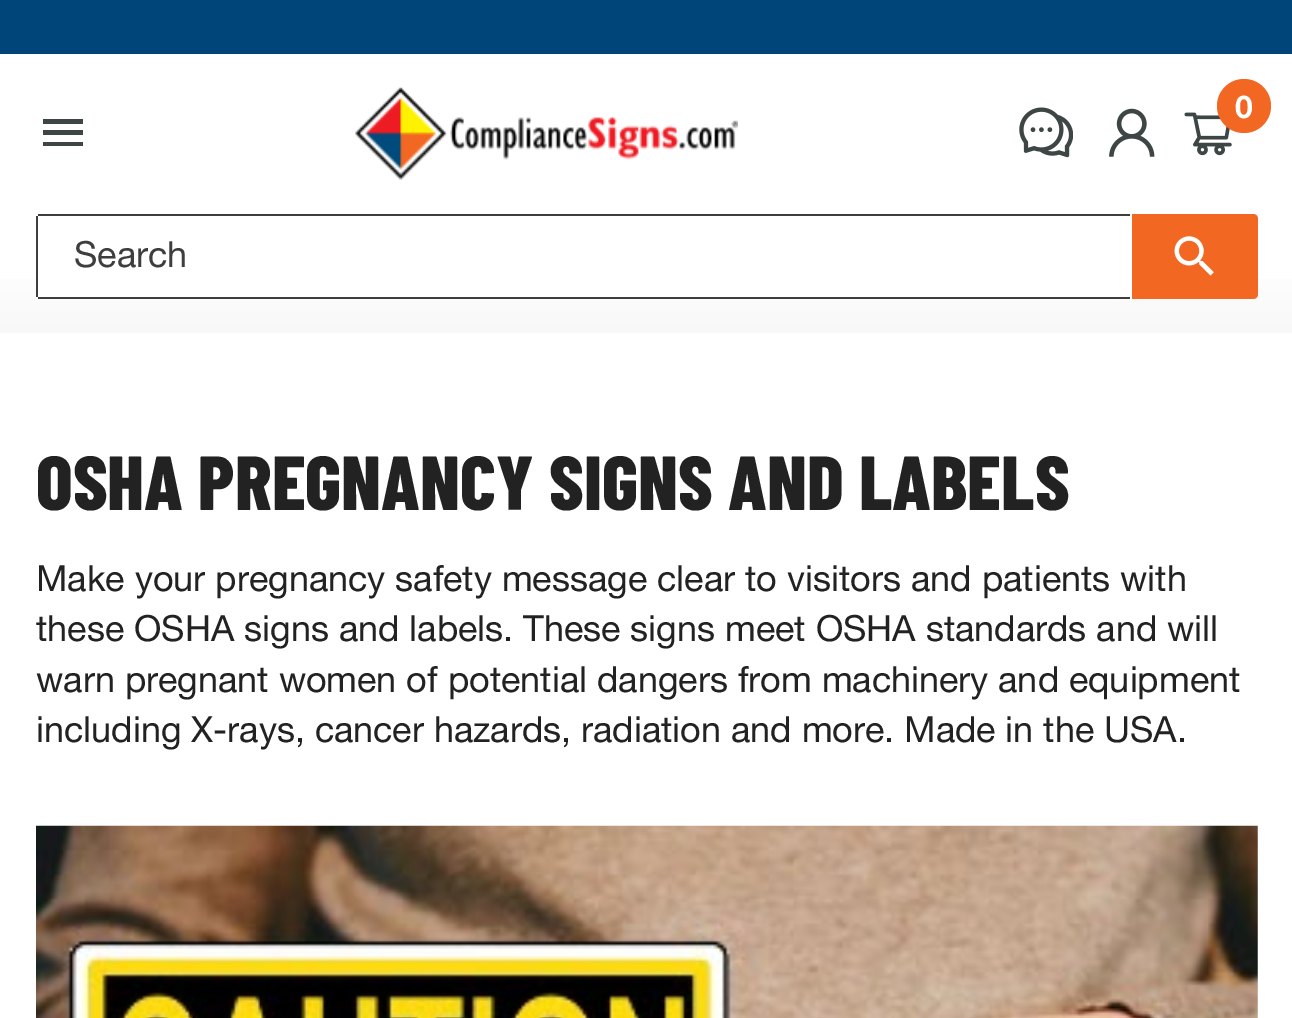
%!PS-Adobe-3.0
%%BoundingBox: 0 0 1292 1018
%%LanguageLevel: 3
%%Pages: 1
%%EndComments
%%BeginProlog
/setink { dup -16 bitshift 255 div exch dup -8 bitshift 255 and 255 div exch 255 and 255 div setrgbcolor } def
/usefont { [ exch dup neg 0 0 3 -1 roll 0 0 ] selectfont } def
/disc { newpath 0 360 arc closepath } def
/drawimage { 5 dict begin { /h /w /y /x /name } { exch def } forall
  gsave x y translate w h scale
  w h 8 [w 0 0 h 0 0] name (r) file false 3 colorimage grestore end } def
%%EndProlog
%%BeginSetup
<< /PageSize [1292 1018] >> setpagedevice
%%EndSetup
%%Page: 1 1
0 1018 translate 1 -1 scale
4 setmiterlimit
16#FFFFFF setink
0 0 1292 1018 rectfill
16#004579 setink
0 0 1292 54 rectfill
gsave 0 279 moveto 1292 279 lineto 1292 333 lineto 0 333 lineto closepath clip newpath
<< /ShadingType 2 /ColorSpace /DeviceRGB /Coords [647 54 647 333] /Extend [true true] /Function << /FunctionType 3 /Domain [0 1] /Functions [<< /FunctionType 2 /Domain [0 1] /C0 [1 1 1] /C1 [1 1 1] /N 1 >> << /FunctionType 2 /Domain [0 1] /C0 [1 1 1] /C1 [0.973 0.973 0.973] /N 1 >>] /Bounds [0.7] /Encode [0 1 0 1] >> >> shfill grestore
(img1.raw) 355 87 383 93 drawimage
(img2.raw) 1019 107 54 51 drawimage
(img3.raw) 1109 108 46 49 drawimage
(img4.raw) 1184 112 48 44 drawimage
16#F26822 setink
1244 106 27 disc fill
/HelveticaNeue-Bold 32 usefont
16#FFFFFF setink
1235 118 moveto (0) show
16#3D4644 setink
43 146 moveto 83 146 lineto 83 142 lineto 43 142 lineto closepath 43 135 moveto 83 135 lineto 83 130 lineto 43 130 lineto closepath 43 119 moveto 43 124 lineto 83 124 lineto 83 119 lineto closepath fill
[
    [36 279 1222 20 16#FFFFFF]
    [38 214 1092 2 16#3E3E3E]
    [38 297 1092 2 16#3E3E3E]
    [36 216 2 81 16#3E3E3E]
] { aload pop setink rectfill } forall
/HelveticaNeue-Regular 36 usefont
74 267 moveto (Search) show
16#F26822 setink
1132 214 moveto 1253 214 lineto 1256 214 1258 216 1258 219 curveto 1258 294 lineto 1258 297 1256 299 1253 299 curveto 1132 299 lineto closepath fill
(img5.raw) 1174 236 40 40 drawimage
/BarlowCondensed-ExtraBold 76.5 usefont
16#222222 setink
36 510 moveto (OSHA PREGNANCY SIGNS AND LABELS) show
/HelveticaNeue-Regular 36 usefont
[
    [(Make your pregnancy safety message clear to visitors and patients with) 36 591]
    [(these OSHA signs and labels. These signs meet OSHA standards and will) 36 641]
    [(warn pregnant women of potential dangers from machinery and equipment) 36 692]
    [(including X-rays, cancer hazards, radiation and more. Made in the USA.) 36 742]
] { aload pop moveto show } forall
(img6.raw) 36 825 1222 193 drawimage
showpage
%%EOF
